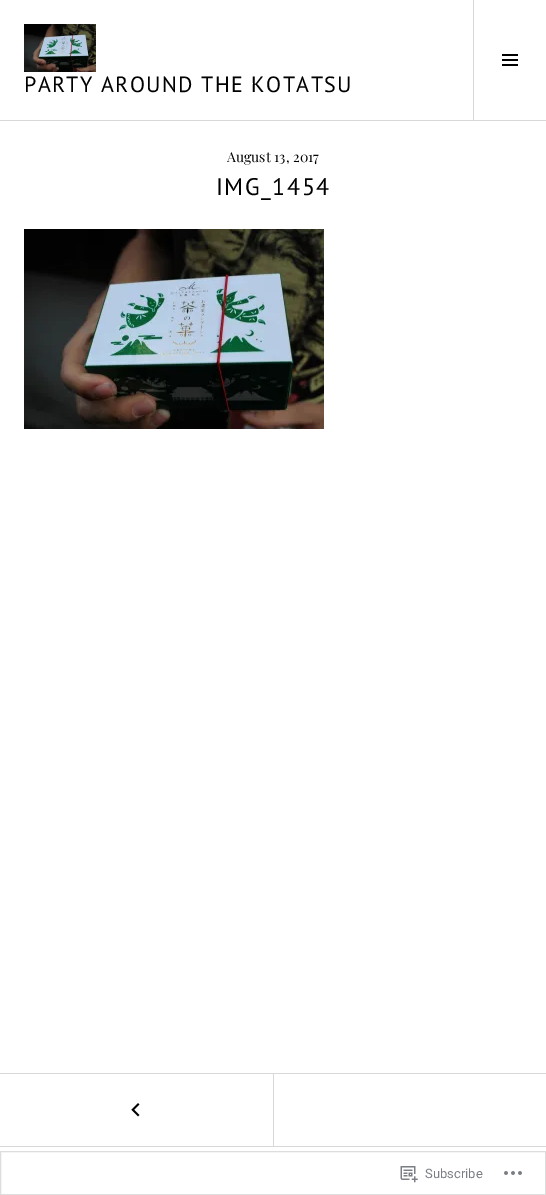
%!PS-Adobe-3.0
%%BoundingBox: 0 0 546 1195
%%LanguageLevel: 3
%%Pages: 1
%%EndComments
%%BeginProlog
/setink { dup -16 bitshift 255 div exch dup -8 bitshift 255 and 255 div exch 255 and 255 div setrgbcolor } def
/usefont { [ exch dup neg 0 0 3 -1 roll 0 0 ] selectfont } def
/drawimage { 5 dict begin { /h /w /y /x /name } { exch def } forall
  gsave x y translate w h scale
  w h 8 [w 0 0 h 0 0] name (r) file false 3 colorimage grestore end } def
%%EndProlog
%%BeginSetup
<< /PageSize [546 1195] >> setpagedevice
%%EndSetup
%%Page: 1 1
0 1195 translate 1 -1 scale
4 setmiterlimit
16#FFFFFF setink
0 0 546 1195 rectfill
16#D8D8D8 setink
0 120 546 1 rectfill
(img1.raw) 24 24 72 48 drawimage
/PTSans-Regular 22 usefont
16#000000 setink
24 92 moveto 1.4 0 (PARTY AROUND THE KOTATSU) ashow
16#D8D8D8 setink
473 0 1 120 rectfill
(img2.raw) 502 54 16 12 drawimage
/PlayfairDisplay-Regular 14 usefont
16#000000 setink
227 162 moveto (August 13, 2017) show
/PTSans-Regular 24 usefont
216 195 moveto 1.5 0 (IMG_1454) ashow
(img3.raw) 24 229 300 200 drawimage
16#D8D8D8 setink
0 1073 546 1 rectfill
(img4.raw) 131 1103 9 14 drawimage
273 1074 1 72 rectfill
0 1146 546 1 rectfill
16#DDDDDF setink
0.5 1151.5 545 43 rectstroke
(img5.raw) 400 1166 18 17 drawimage
/Roboto-Regular 13 usefont
16#7B7F85 setink
425 1178 moveto (Subscribe) show
(img6.raw) 504 1171 18 4 drawimage
showpage
%%EOF
